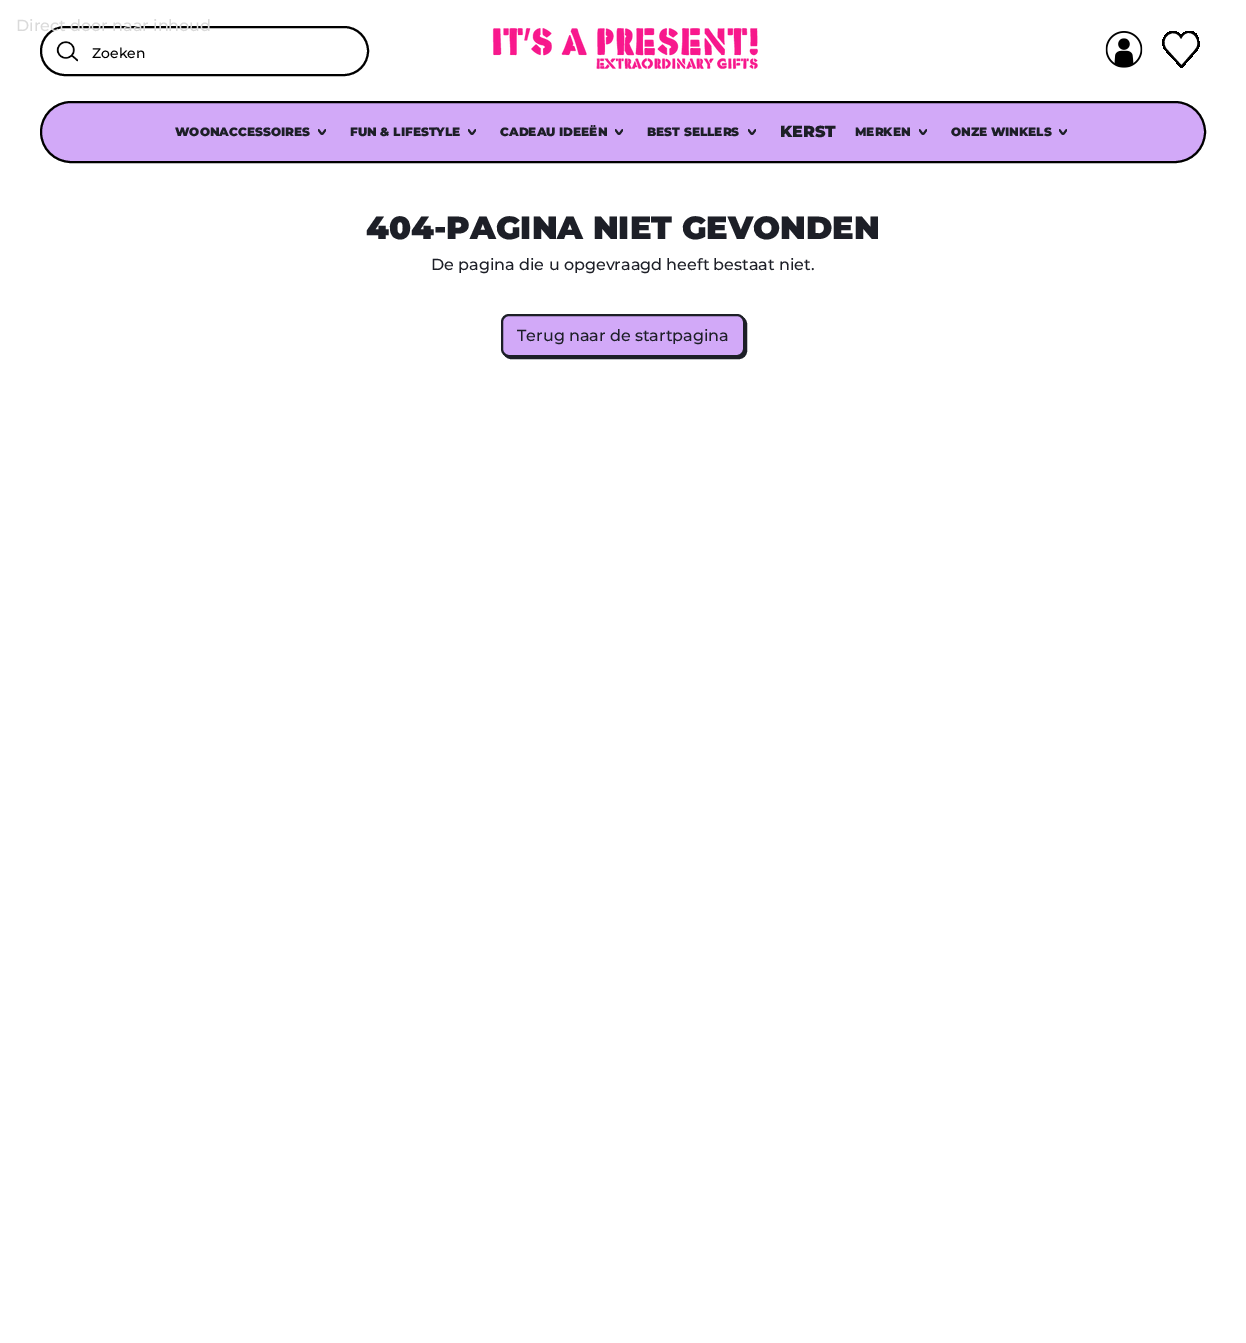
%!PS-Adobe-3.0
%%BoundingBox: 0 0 1246 1343
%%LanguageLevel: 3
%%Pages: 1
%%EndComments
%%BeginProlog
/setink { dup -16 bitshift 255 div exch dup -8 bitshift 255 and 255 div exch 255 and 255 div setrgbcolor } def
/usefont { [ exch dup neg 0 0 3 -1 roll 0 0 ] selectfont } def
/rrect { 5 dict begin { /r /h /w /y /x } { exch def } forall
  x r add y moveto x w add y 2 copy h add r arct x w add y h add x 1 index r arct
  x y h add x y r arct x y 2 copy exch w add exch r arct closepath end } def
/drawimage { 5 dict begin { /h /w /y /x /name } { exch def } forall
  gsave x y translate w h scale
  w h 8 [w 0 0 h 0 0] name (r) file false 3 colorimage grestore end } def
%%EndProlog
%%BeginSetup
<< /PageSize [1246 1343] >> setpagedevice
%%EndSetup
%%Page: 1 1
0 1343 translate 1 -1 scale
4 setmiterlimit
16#FFFFFF setink
0 0 1246 1343 rectfill
16#000000 setink
2 setlinewidth
41 27 327 48 24 rrect stroke
/Montserrat-Medium 16 usefont
16#DADADA setink
16 31 moveto (Direct door naar inhoud) show
(img1.raw) 56 41 22 21 drawimage
/Montserrat-Medium 14 usefont
16#000000 setink
92 58 moveto (Zoeken) show
(img2.raw) 492 28 266 42 drawimage
(img3.raw) 1105 31 38 37 drawimage
gsave
1162.5 31 moveto 1199.5 31 lineto 1199.5 68 lineto 1162.5 68 lineto closepath clip newpath
1164 37 moveto 1161 42.5 1163 48 1166 51 curveto 1181.5 68 lineto 1196.5 51 lineto 1199 48 1200 44.5 1199 41 curveto 1198.5 35.5 1195 31.5 1190.5 31 curveto 1187.5 31 1185 31.5 1182.5 33.5 curveto 1181 35.5 lineto 1179.5 33.5 lineto 1177 31.5 1174 30.5 1171 31 curveto 1168 32 1165.5 34 1164 37 curveto closepath clip newpath
3.7 setlinewidth
1164 37 moveto 1161 42.5 1163 48 1166 51 curveto 1181.5 68 lineto 1191.5 56.5 lineto 1194 53.5 1197 51 1198.5 47.5 curveto 1203 35.5 1188.5 24.5 1181 35.5 curveto 1176.5 29 1168 30 1164 37 curveto closepath stroke
grestore
16#D2A9F8 setink
41 102 1164 60 30 rrect gsave fill grestore
16#000000 setink
stroke
/Montserrat-Black 12 usefont
16#1D1F27 setink
175 136 moveto (WOONACCESSOIRES) show
gsave
318 128 8 8 rectclip
1.9 setlinewidth
1 setlinecap
1 setlinejoin
318.5 130 moveto 323 135.5 321 135.5 325.5 130 curveto stroke
grestore
350 136 moveto (FUN & LIFESTYLE) show
gsave
468 128 8 8 rectclip
1.9 setlinewidth
1 setlinecap
1 setlinejoin
468.5 130 moveto 473 135.5 471 135.5 475.5 130 curveto stroke
grestore
500 136 moveto (CADEAU IDEEËN) show
gsave
615 128 8 8 rectclip
1.9 setlinewidth
1 setlinecap
1 setlinejoin
615.5 130 moveto 620 135.5 618 135.5 622.5 130 curveto stroke
grestore
647 136 moveto (BEST SELLERS) show
gsave
748 128 8 8 rectclip
1.9 setlinewidth
1 setlinecap
1 setlinejoin
748.5 130 moveto 753 135.5 751 135.5 755.5 130 curveto stroke
grestore
/Montserrat-Black 16 usefont
780 137 moveto (KERST) show
/Montserrat-Black 12 usefont
855 136 moveto (MERKEN) show
gsave
919 128 8 8 rectclip
1.9 setlinewidth
1 setlinecap
1 setlinejoin
919.5 130 moveto 924 135.5 922 135.5 926.5 130 curveto stroke
grestore
951 136 moveto (ONZE WINKELS) show
gsave
1059 128 8 8 rectclip
1.9 setlinewidth
1 setlinecap
1 setlinejoin
1059.5 130 moveto 1064 135.5 1062 135.5 1066.5 130 curveto stroke
grestore
/Montserrat-Black 32 usefont
366 239 moveto (404-PAGINA NIET GEVONDEN) show
/Montserrat-Medium 16 usefont
431 270 moveto (De pagina die u opgevraagd heeft bestaat niet.) show
504 317 242 41 7 rrect gsave fill grestore
stroke
16#D2A9F8 setink
502 315 242 41 7 rrect gsave fill grestore
16#1D1F27 setink
stroke
517 341 moveto (Terug naar de startpagina) show
showpage
%%EOF
